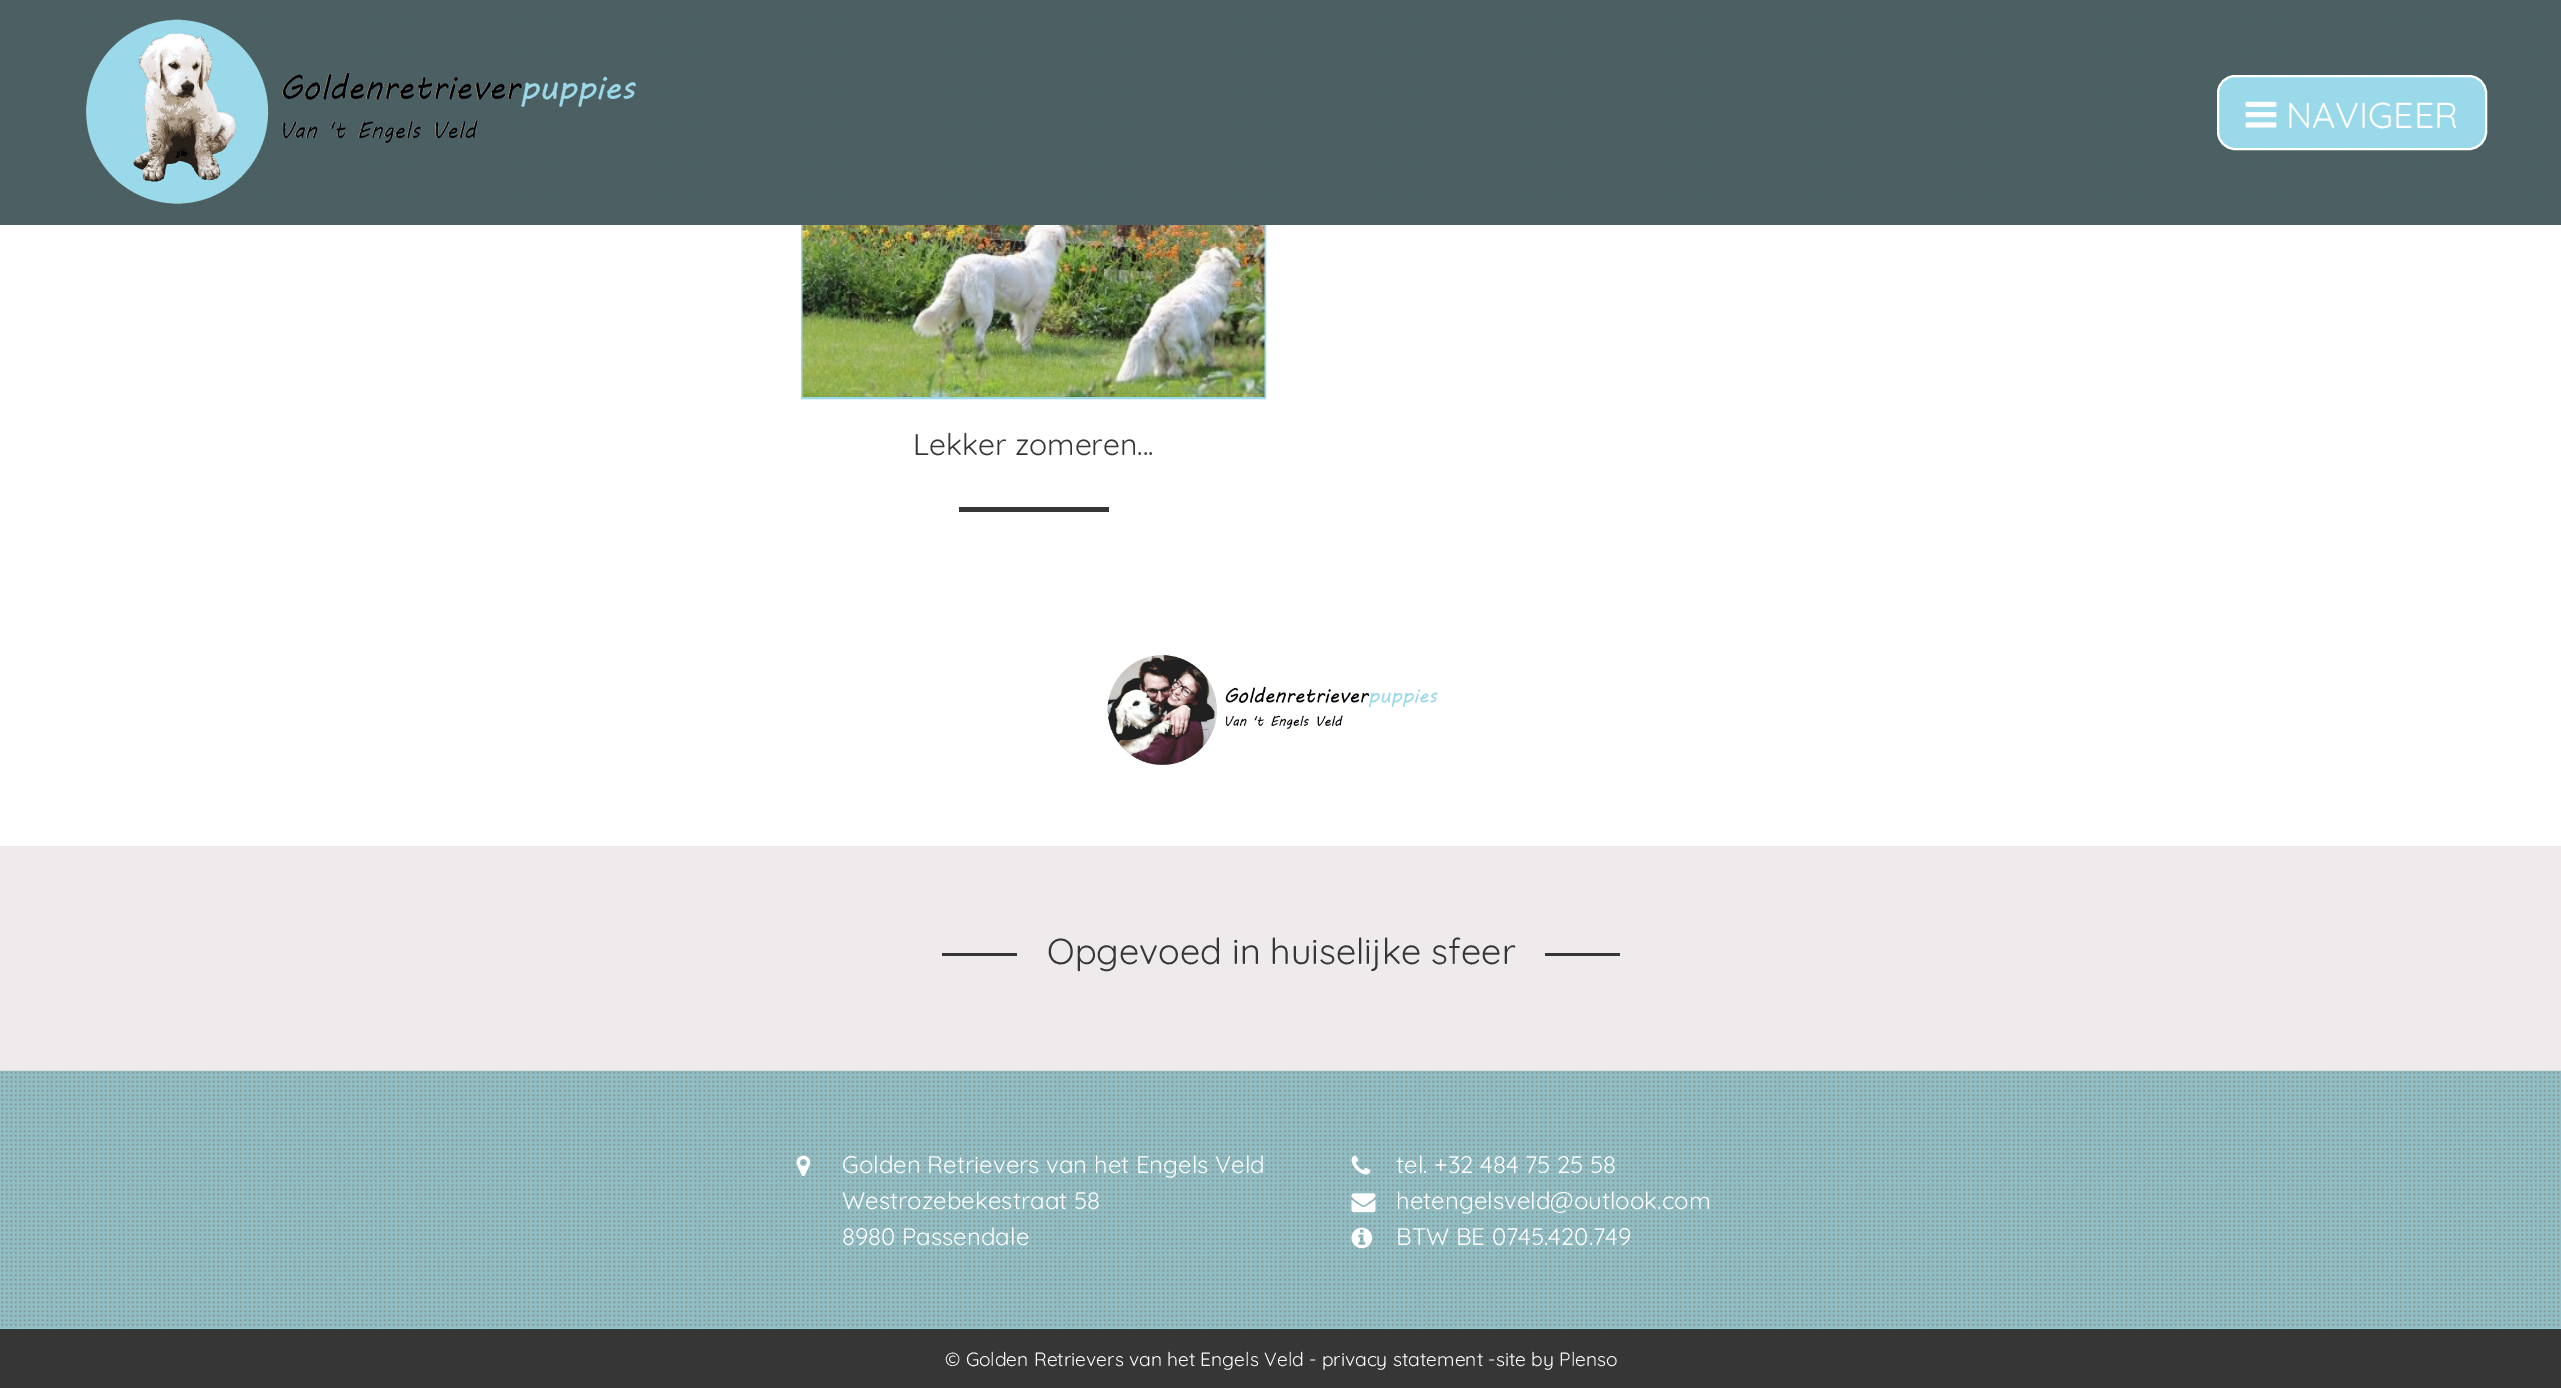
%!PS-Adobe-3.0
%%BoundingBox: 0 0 2561 1388
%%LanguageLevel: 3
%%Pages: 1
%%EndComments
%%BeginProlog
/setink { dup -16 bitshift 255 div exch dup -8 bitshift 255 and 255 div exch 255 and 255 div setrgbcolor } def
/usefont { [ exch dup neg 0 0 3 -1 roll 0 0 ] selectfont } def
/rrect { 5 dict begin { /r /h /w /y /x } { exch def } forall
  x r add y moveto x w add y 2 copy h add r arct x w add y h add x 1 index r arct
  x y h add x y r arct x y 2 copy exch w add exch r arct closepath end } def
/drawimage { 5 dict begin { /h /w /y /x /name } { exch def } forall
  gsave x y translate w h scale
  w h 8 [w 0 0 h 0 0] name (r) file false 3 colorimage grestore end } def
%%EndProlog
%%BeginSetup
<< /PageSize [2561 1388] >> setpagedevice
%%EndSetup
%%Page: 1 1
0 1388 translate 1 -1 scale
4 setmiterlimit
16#FFFFFF setink
0 0 2561 1388 rectfill
16#9AD9EA setink
2 setlinewidth
802 -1 463 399 rectstroke
16#46636A setink
0 0 2561 225 rectfill
(img1.raw) 0 0 2561 225 drawimage
(img2.raw) 86 19 550 185 drawimage
16#9AD9EA setink
2218 76 268 73 17 rrect gsave fill grestore
16#FFFFFF setink
stroke
(img3.raw) 2245 101 32 27 drawimage
/Quicksand-Light 36 usefont
2286 128 moveto (NAVIGEER) show
(img4.raw) 802 225 463 172 drawimage
/Quicksand-Light 30 usefont
16#363636 setink
913 455 moveto (Lekker zomeren...) show
959 507 150 5 rectfill
(img5.raw) 1107 654 331 111 drawimage
16#EFEBEC setink
0 846 2561 225 rectfill
16#363636 setink
942 953 75 3 rectfill
/Quicksand-Light 36 usefont
1047 964 moveto (Opgevoed in huiselijke sfeer) show
1545 953 75 3 rectfill
16#9AD9EA setink
0 1071 2561 258 rectfill
(img6.raw) 0 1070 2561 259 drawimage
(img7.raw) 796 1155 15 22 drawimage
/Quicksand-Light 24 usefont
16#FFFFFF setink
[
    [(Golden Retrievers van het Engels Veld) 842 1173]
    [(Westrozebekestraat 58) 842 1209]
    [(8980 Passendale) 842 1245]
] { aload pop moveto show } forall
(img8.raw) 1351 1155 20 20 drawimage
1396 1173 moveto (tel. +32 484 75 25 58) show
(img9.raw) 1351 1193 25 20 drawimage
1396 1209 moveto (hetengelsveld@outlook.com) show
(img10.raw) 1351 1227 22 22 drawimage
1396 1245 moveto (BTW BE 0745.420.749) show
16#363636 setink
0 1329 2561 59 rectfill
/Quicksand-Light 19.2 usefont
16#FFFFFF setink
945 1366 moveto (© Golden Retrievers van het Engels Veld - privacy statement -site by Plenso) show
showpage
%%EOF
